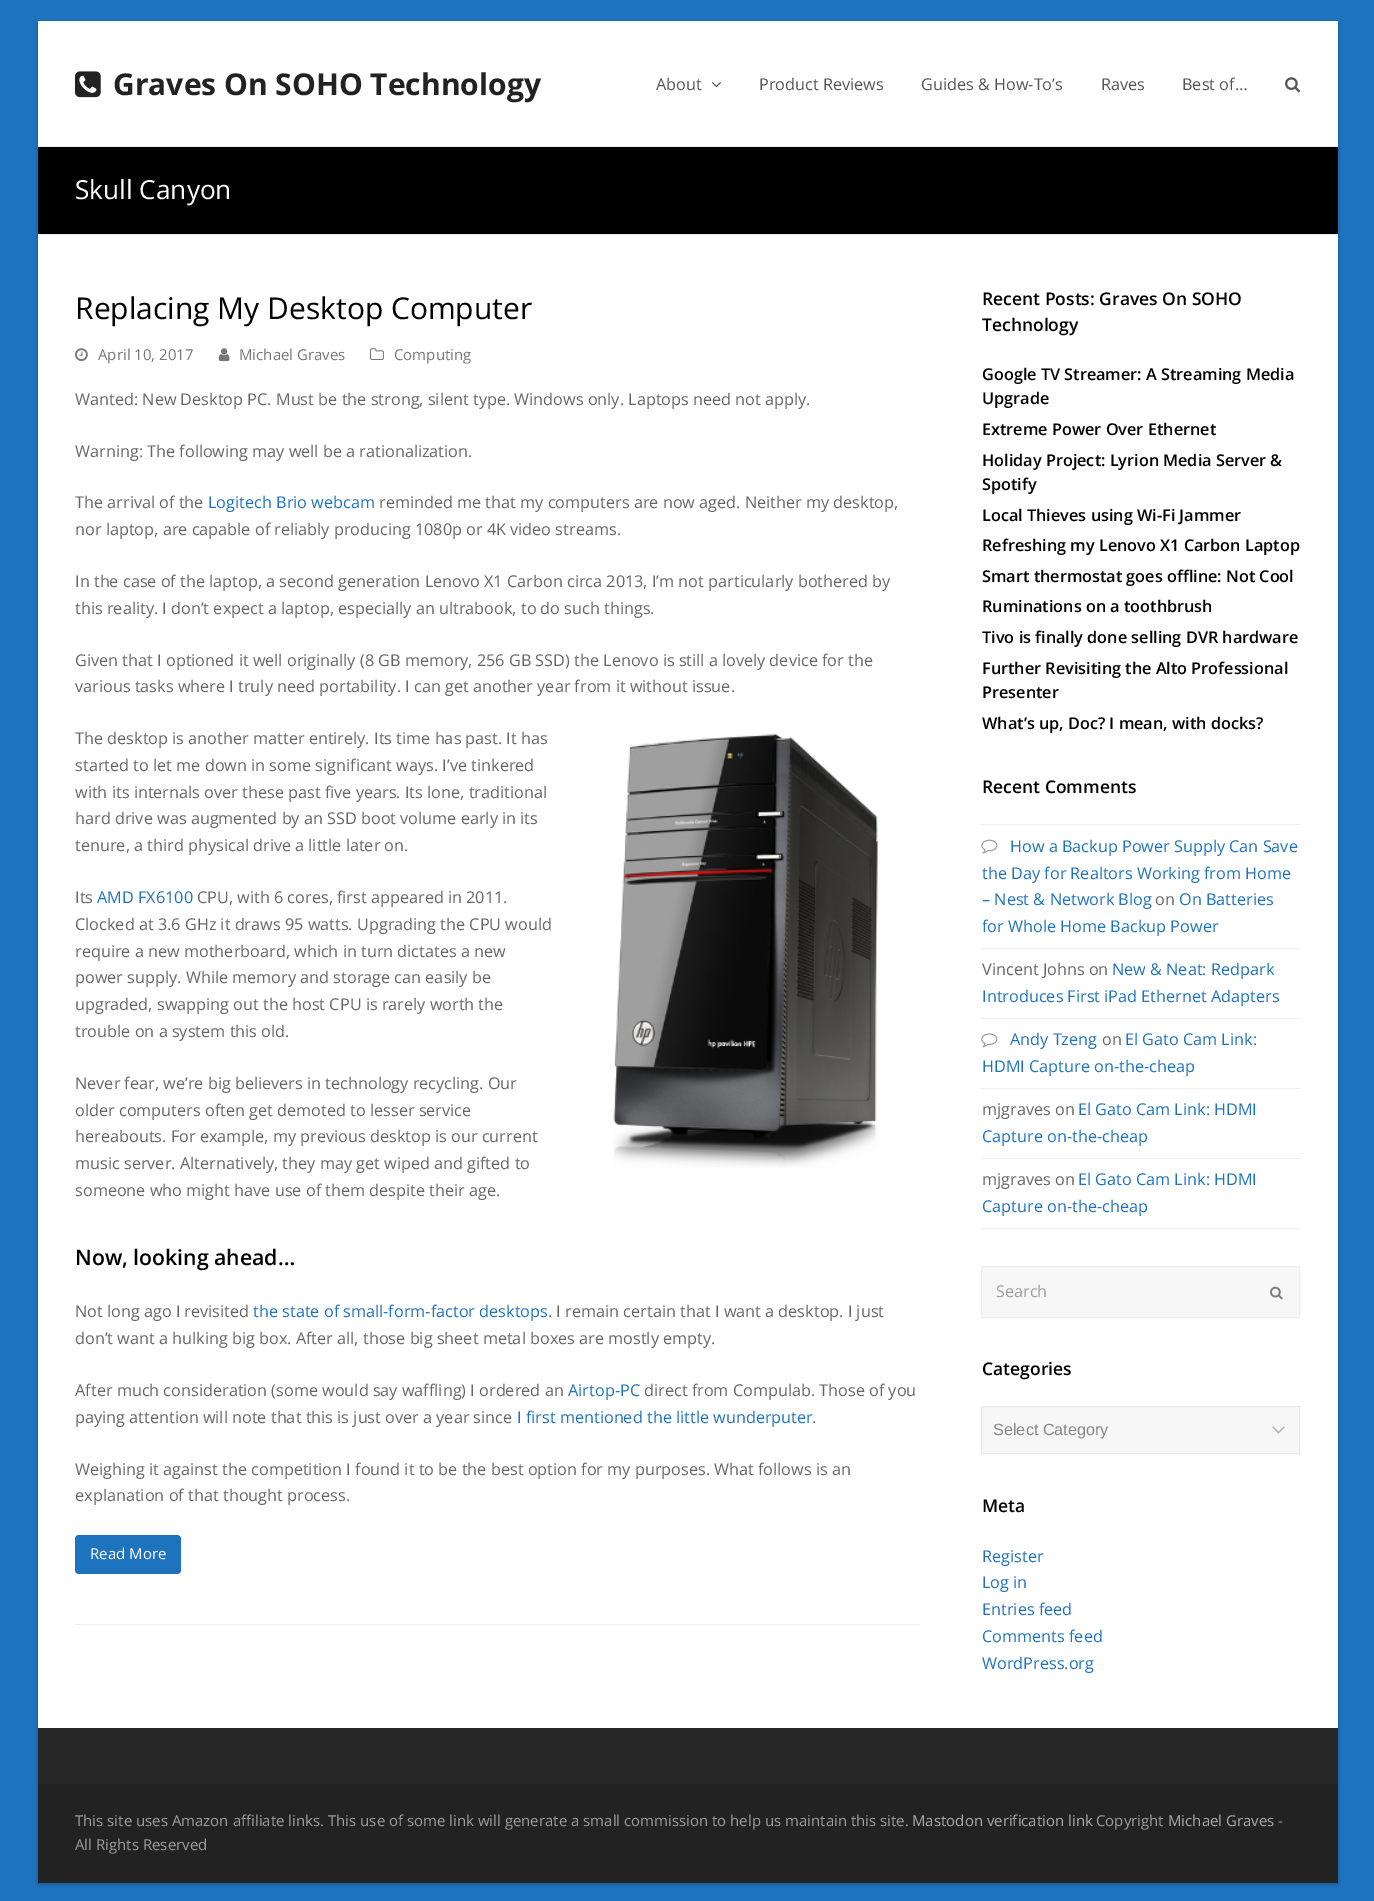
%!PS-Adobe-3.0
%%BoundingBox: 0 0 1374 1901
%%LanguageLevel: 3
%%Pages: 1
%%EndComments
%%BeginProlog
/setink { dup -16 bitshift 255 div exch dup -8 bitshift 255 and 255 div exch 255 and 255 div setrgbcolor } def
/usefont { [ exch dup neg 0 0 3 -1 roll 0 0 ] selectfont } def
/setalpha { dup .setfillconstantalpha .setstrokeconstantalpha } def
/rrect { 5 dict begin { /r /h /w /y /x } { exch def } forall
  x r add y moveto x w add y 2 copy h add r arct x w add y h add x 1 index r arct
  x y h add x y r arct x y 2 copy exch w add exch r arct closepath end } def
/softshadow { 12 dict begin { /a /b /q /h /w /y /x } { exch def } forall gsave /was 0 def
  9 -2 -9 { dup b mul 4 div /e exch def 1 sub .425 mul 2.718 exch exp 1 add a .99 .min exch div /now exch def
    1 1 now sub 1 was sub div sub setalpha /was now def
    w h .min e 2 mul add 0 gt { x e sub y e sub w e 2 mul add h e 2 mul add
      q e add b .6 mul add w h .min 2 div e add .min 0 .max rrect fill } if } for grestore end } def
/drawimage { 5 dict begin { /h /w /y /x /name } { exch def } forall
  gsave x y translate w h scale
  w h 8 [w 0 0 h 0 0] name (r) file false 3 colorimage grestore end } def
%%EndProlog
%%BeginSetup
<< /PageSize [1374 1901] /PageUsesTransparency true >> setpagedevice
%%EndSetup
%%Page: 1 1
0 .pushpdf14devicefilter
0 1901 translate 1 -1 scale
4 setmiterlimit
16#1E73BE setink
0 0 1374 1901 rectfill
16#000000 setink
38 23 1300 1861 0 2.5 0.25 softshadow
16#FFFFFF setink
38 21 1300 1707 rectfill
(img1.raw) 75 71 26 27 drawimage
/OpenSans-Bold 30 usefont
16#222222 setink
113 95 moveto (Graves On SOHO Technology) show
/OpenSans-Regular 16.25 usefont
16#555555 setink
656 90 moveto (About) show
(img2.raw) 712 82 9 6 drawimage
[
    [(Product Reviews) 759 90]
    [(Guides & How-To’s) 921 90]
    [(Raves) 1101 90]
    [(Best of…) 1182 90]
] { aload pop moveto show } forall
(img3.raw) 1285 77 16 16 drawimage
[
    [38 147 1300 87 16#000000]
    [38 146 1300 1 16#EEEEEE]
    [38 234 1300 1 16#EEEEEE]
] { aload pop setink rectfill } forall
/OpenSans-Regular 26.25 usefont
16#FFFFFF setink
75 199 moveto (Skull Canyon) show
16#EEEEEE setink
75 1624 845 1 rectfill
/OpenSans-Regular 30 usefont
16#000000 setink
75 319 moveto (Replacing My Desktop Computer) show
(img4.raw) 75 348 13 14 drawimage
/OpenSans-Regular 15 usefont
16#777777 setink
98 360 moveto (April 10, 2017) show
(img5.raw) 218 348 12 14 drawimage
239 360 moveto (Michael Graves) show
(img6.raw) 370 348 14 12 drawimage
394 360 moveto (Computing) show
/OpenSans-Regular 16.25 usefont
16#666666 setink
[
    [(Wanted: New Desktop PC. Must be the strong, silent type. Windows only. Laptops need not apply.) 75 405]
    [(Warning: The following may well be a rationalization.) 75 457]
    [(The arrival of the) 75 508]
] { aload pop moveto show } forall
16#1E73BE setink
208 508 moveto (Logitech Brio webcam) show
16#666666 setink
[
    [(reminded me that my computers are now aged. Neither my desktop,) 379 508]
    [(nor laptop, are capable of reliably producing 1080p or 4K video streams.) 75 535]
    [(In the case of the laptop, a second generation Lenovo X1 Carbon circa 2013, I’m not particularly bothered by) 75 587]
    [(this reality. I don’t expect a laptop, especially an ultrabook, to do such things.) 75 614]
    [(Given that I optioned it well originally \(8 GB memory, 256 GB SSD\) the Lenovo is still a lovely device for the) 75 666]
    [(various tasks where I truly need portability. I can get another year from it without issue.) 75 692]
    [(The desktop is another matter entirely. Its time has past. It has) 75 744]
] { aload pop moveto show } forall
(img7.raw) 613 733 266 435 drawimage
[
    [(started to let me down in some significant ways. I’ve tinkered) 75 771]
    [(with its internals over these past five years. Its lone, traditional) 75 798]
    [(hard drive was augmented by an SSD boot volume early in its) 75 824]
    [(tenure, a third physical drive a little later on.) 75 851]
    [(Its) 75 903]
] { aload pop moveto show } forall
16#1E73BE setink
97 903 moveto (AMD FX6100) show
16#666666 setink
[
    [(CPU, with 6 cores, first appeared in 2011.) 197 903]
    [(Clocked at 3.6 GHz it draws 95 watts. Upgrading the CPU would) 75 930]
    [(require a new motherboard, which in turn dictates a new) 75 957]
    [(power supply. While memory and storage can easily be) 75 983]
    [(upgraded, swapping out the host CPU is rarely worth the) 75 1010]
    [(trouble on a system this old.) 75 1037]
    [(Never fear, we’re big believers in technology recycling. Our) 75 1089]
    [(older computers often get demoted to lesser service) 75 1116]
    [(hereabouts. For example, my previous desktop is our current) 75 1142]
    [(music server. Alternatively, they may get wiped and gifted to) 75 1169]
    [(someone who might have use of them despite their age.) 75 1196]
] { aload pop moveto show } forall
/OpenSans-SemiBold 21.25 usefont
16#000000 setink
75 1265 moveto (Now, looking ahead…) show
/OpenSans-Regular 16.25 usefont
16#666666 setink
75 1317 moveto (Not long ago I revisited) show
16#1E73BE setink
253 1317 moveto (the state of small-form-factor desktops) show
16#666666 setink
[
    [(. I remain certain that I want a desktop. I just) 548 1317]
    [(don’t want a hulking big box. After all, those big sheet metal boxes are mostly empty.) 75 1344]
    [(After much consideration \(some would say waffling\) I ordered an) 75 1396]
] { aload pop moveto show } forall
16#1E73BE setink
568 1396 moveto (Airtop-PC) show
16#666666 setink
644 1396 moveto (direct from Compulab. Those of you) show
75 1423 moveto (paying attention will note that this is just over a year since) show
16#1E73BE setink
517 1423 moveto (I first mentioned the little wunderputer) show
16#666666 setink
[
    [(.) 812 1423]
    [(Weighing it against the competition I found it to be the best option for my purposes. What follows is an) 75 1475]
    [(explanation of that thought process.) 75 1501]
] { aload pop moveto show } forall
16#1E73BE setink
75 1535 106 39 4 rrect fill
/OpenSans-Regular 15 usefont
16#FFFFFF setink
90 1559 moveto (Read More) show
/OpenSans-SemiBold 17.5 usefont
16#000000 setink
982 305 moveto (Recent Posts: Graves On SOHO) show
982 331 moveto (Technology) show
/OpenSans-SemiBold 16.25 usefont
[
    [(Google TV Streamer: A Streaming Media) 982 380]
    [(Upgrade) 982 404]
    [(Extreme Power Over Ethernet) 982 435]
    [(Holiday Project: Lyrion Media Server &) 982 466]
    [(Spotify) 982 490]
    [(Local Thieves using Wi-Fi Jammer) 982 521]
    [(Refreshing my Lenovo X1 Carbon Laptop) 982 551]
    [(Smart thermostat goes offline: Not Cool) 982 582]
    [(Ruminations on a toothbrush) 982 612]
    [(Tivo is finally done selling DVR hardware) 982 643]
    [(Further Revisiting the Alto Professional) 982 674]
    [(Presenter) 982 698]
    [(What’s up, Doc? I mean, with docks?) 982 729]
] { aload pop moveto show } forall
/OpenSans-SemiBold 17.5 usefont
982 793 moveto (Recent Comments) show
16#EEEEEE setink
981 824 319 1 rectfill
981 948 319 1 rectfill
(img8.raw) 981 839 17 15 drawimage
/OpenSans-Regular 16.25 usefont
16#1E73BE setink
[
    [(How a Backup Power Supply Can Save) 1010 852]
    [(the Day for Realtors Working from Home) 982 879]
    [(– Nest & Network Blog) 982 905]
] { aload pop moveto show } forall
16#666666 setink
1155 905 moveto (on) show
16#1E73BE setink
1179 905 moveto (On Batteries) show
982 932 moveto (for Whole Home Backup Power) show
16#EEEEEE setink
981 1018 319 1 rectfill
16#666666 setink
982 975 moveto (Vincent Johns on) show
16#1E73BE setink
1112 975 moveto (New & Neat: Redpark) show
982 1002 moveto (Introduces First iPad Ethernet Adapters) show
16#EEEEEE setink
981 1088 319 1 rectfill
(img9.raw) 981 1033 17 15 drawimage
16#1E73BE setink
1010 1045 moveto (Andy Tzeng) show
16#666666 setink
1102 1045 moveto (on) show
16#1E73BE setink
1125 1045 moveto (El Gato Cam Link:) show
982 1072 moveto (HDMI Capture on-the-cheap) show
16#EEEEEE setink
981 1158 319 1 rectfill
16#666666 setink
982 1115 moveto (mjgraves on) show
16#1E73BE setink
1078 1115 moveto (El Gato Cam Link: HDMI) show
982 1142 moveto (Capture on-the-cheap) show
16#EEEEEE setink
981 1228 319 1 rectfill
16#666666 setink
982 1185 moveto (mjgraves on) show
16#1E73BE setink
1078 1185 moveto (El Gato Cam Link: HDMI) show
982 1212 moveto (Capture on-the-cheap) show
16#F7F7F7 setink
981.5 1266.5 moveto 1299.5 1266.5 lineto 1299.5 1317.5 lineto 981.5 1317.5 lineto closepath gsave fill grestore
16#EEEEEE setink
stroke
16#9D9D9D setink
996 1297 moveto (Search) show
(img10.raw) 1270 1286 13 14 drawimage
/OpenSans-SemiBold 17.5 usefont
16#000000 setink
982 1375 moveto (Categories) show
16#F7F7F7 setink
981.5 1406.5 moveto 1299.5 1406.5 lineto 1299.5 1453.5 lineto 981.5 1453.5 lineto closepath gsave fill grestore
16#E8E8E8 setink
stroke
/LiberationSans-Regular 16.25 usefont
16#888888 setink
993 1435 moveto (Select Category) show
(img11.raw) 1272 1426 13 8 drawimage
/OpenSans-SemiBold 17.5 usefont
16#000000 setink
982 1512 moveto (Meta) show
/OpenSans-Regular 16.25 usefont
16#1E73BE setink
[
    [(Register) 982 1562]
    [(Log in) 982 1588]
    [(Entries feed) 982 1615]
    [(Comments feed) 982 1642]
    [(WordPress.org) 982 1669]
] { aload pop moveto show } forall
16#262626 setink
38 1728 1300 56 rectfill
16#222222 setink
38 1784 1300 99 rectfill
/OpenSans-Regular 15 usefont
16#9D9D9D setink
75 1826 moveto (This site uses Amazon affiliate links. This use of some link will generate a small commission to help us maintain this site.) show
16#AAAAAA setink
912 1826 moveto (Mastodon verification link) show
16#9D9D9D setink
1096 1826 moveto (Copyright) show
16#AAAAAA setink
1168 1826 moveto (Michael Graves) show
16#9D9D9D setink
1278 1826 moveto (-) show
75 1850 moveto (All Rights Reserved) show
.poppdf14devicefilter showpage
%%EOF
